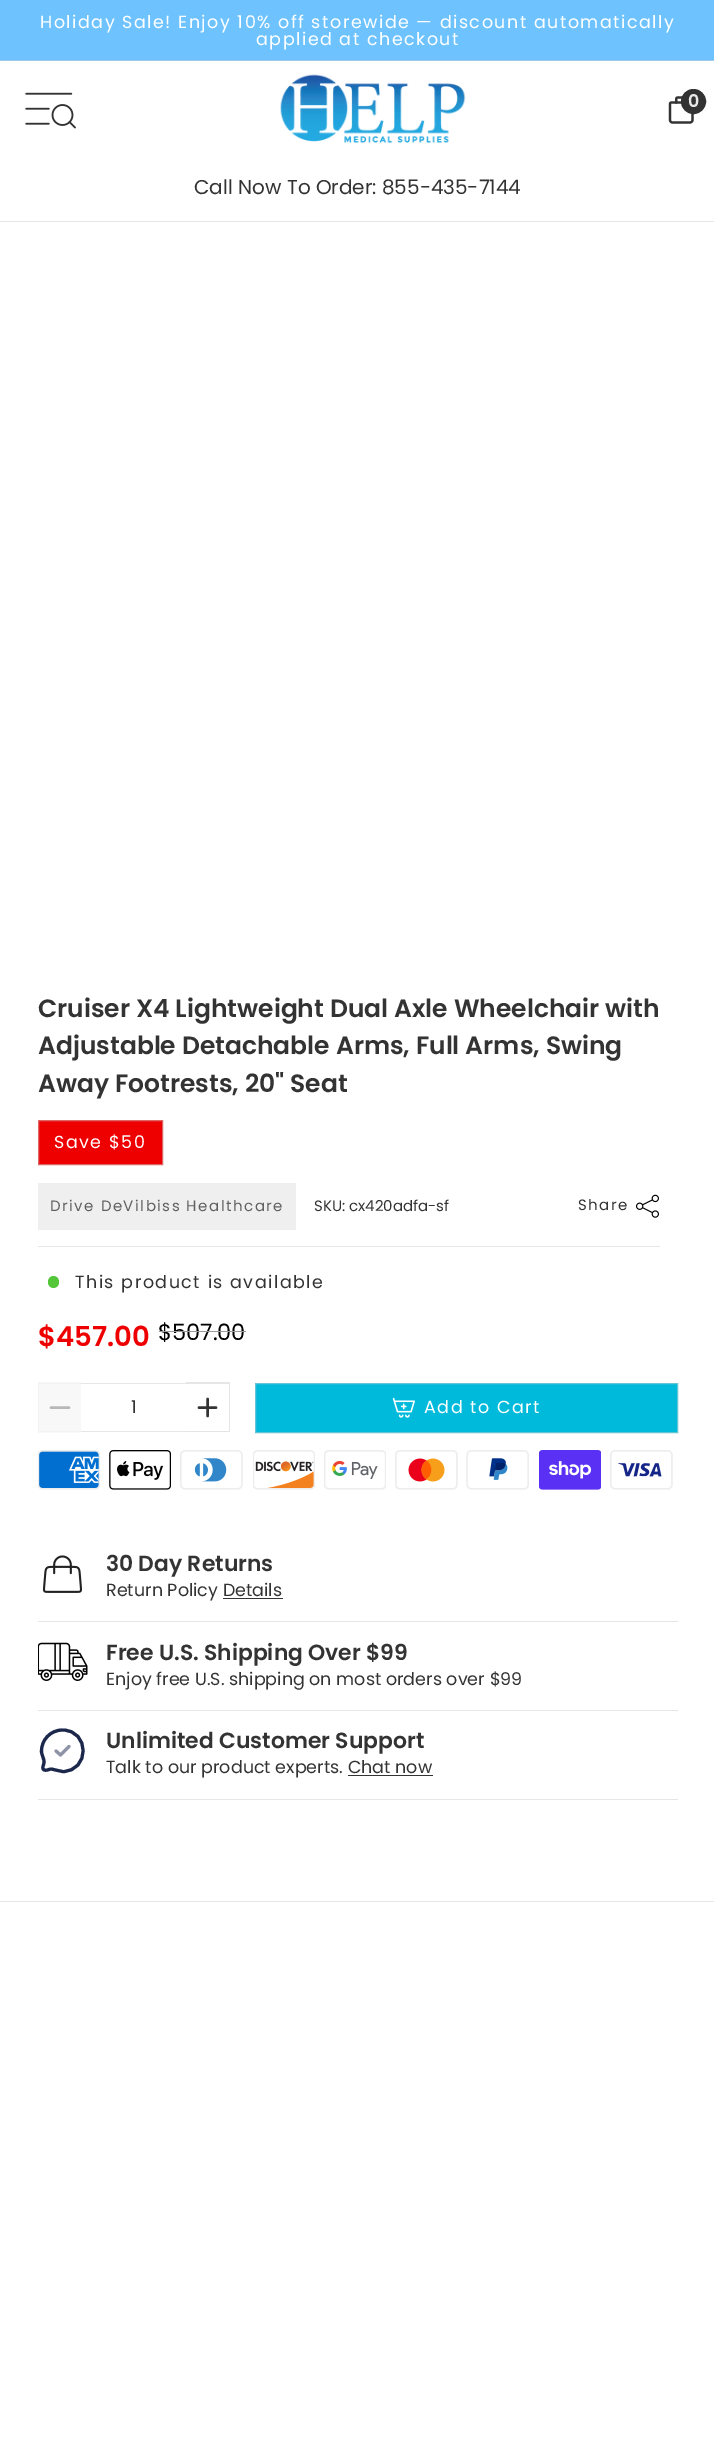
%!PS-Adobe-3.0
%%BoundingBox: 0 0 714 2438
%%LanguageLevel: 3
%%Pages: 1
%%EndComments
%%BeginProlog
/setink { dup -16 bitshift 255 div exch dup -8 bitshift 255 and 255 div exch 255 and 255 div setrgbcolor } def
/usefont { [ exch dup neg 0 0 3 -1 roll 0 0 ] selectfont } def
/setalpha { dup .setfillconstantalpha .setstrokeconstantalpha } def
/disc { newpath 0 360 arc closepath } def
/rrect { 5 dict begin { /r /h /w /y /x } { exch def } forall
  x r add y moveto x w add y 2 copy h add r arct x w add y h add x 1 index r arct
  x y h add x y r arct x y 2 copy exch w add exch r arct closepath end } def
/drawimage { 5 dict begin { /h /w /y /x /name } { exch def } forall
  gsave x y translate w h scale
  w h 8 [w 0 0 h 0 0] name (r) file false 3 colorimage grestore end } def
%%EndProlog
%%BeginSetup
<< /PageSize [714 2438] /PageUsesTransparency true >> setpagedevice
%%EndSetup
%%Page: 1 1
0 .pushpdf14devicefilter
0 2438 translate 1 -1 scale
4 setmiterlimit
16#FFFFFF setink
0 0 714 2438 rectfill
16#6EC3FF setink
0 0 714 60 rectfill
16#9DC8E6 setink
0 60 714 1 rectfill
/Poppins-Regular 17.5 usefont
16#FFFFFF setink
40 28 moveto 1.5 0 (Holiday Sale! Enjoy 10% off storewide — discount automatically) ashow
256 45 moveto 1.5 0 (applied at checkout) ashow
16#E6E6E6 setink
0 221 714 1 rectfill
(img1.raw) 25 92 51 37 drawimage
(img2.raw) 280 74 186 69 drawimage
(img3.raw) 668 96 26 28 drawimage
16#333333 setink
693.5 101.5 12 disc gsave fill grestore
stroke
/Poppins-SemiBold 17.5 usefont
16#E9E9E9 setink
688 107 moveto (0) show
/Poppins-Regular 20 usefont
16#333333 setink
194 194 moveto (Call Now To Order: 855-435-7144) show
/Poppins-SemiBold 25 usefont
[
    [(Cruiser X4 Lightweight Dual Axle Wheelchair with) 38 1017]
    [(Adjustable Detachable Arms, Full Arms, Swing) 38 1054]
    [(Away Footrests, 20" Seat) 38 1092]
] { aload pop moveto show } forall
16#EE0000 setink
38.5 1120.5 moveto 162.5 1120.5 lineto 162.5 1164.5 lineto 38.5 1164.5 lineto closepath gsave fill grestore
16#DD6666 setink
stroke
/Poppins-Regular 17.5 usefont
16#FFFFFF setink
54 1148 moveto 1.5 0 (Save $50) ashow
16#E6E6E6 setink
38 1246 622 1 rectfill
16#EFEFEF setink
38 1183 258 47 rectfill
/Poppins-Regular 15 usefont
16#606060 setink
50 1211 moveto 1.5 0 (Drive DeVilbiss Healthcare) ashow
16#333333 setink
314 1211 moveto (SKU: cx420adfa-sf) show
578 1210 moveto 1.5 0 (Share) ashow
(img4.raw) 636 1194 23 24 drawimage
16#54C63A setink
48 1276 11 12 5.5 rrect fill
/Poppins-Regular 17.5 usefont
16#333333 setink
75 1288 moveto 1.5 0 (This product is available) ashow
/Poppins-SemiBold 27.5 usefont
16#EE0000 setink
38 1346 moveto ($457.00) show
/Poppins-Regular 22.5 usefont
16#000000 setink
158 1340 moveto ($507.00) show
16#999999 setink
159 1331 87 1 rectfill
16#F8F8F8 setink
38 1383 43 50 rectfill
0.5 setalpha
16#EDEDED setink
38 1382 moveto 81 1382 lineto 81 1384 lineto 39 1384 lineto closepath fill
1 setalpha
16#F3F3F3 setink
81 1432 moveto 38 1432 lineto 39 1431 lineto 81 1431 lineto closepath fill
0.5 setalpha
16#EDEDED setink
38 1432 moveto 38 1382 lineto 39 1384 lineto 39 1431 lineto closepath fill
1 setalpha
16#B8B8B8 setink
2.5 setlinewidth
1 setlinecap
1 setlinejoin
51 1407.5 moveto 69 1407.5 lineto stroke
16#E6E6E6 setink
81 1383 105 1 rectfill
81 1431 105 1 rectfill
/Poppins-Regular 17.5 usefont
16#333333 setink
131 1413 moveto (1) show
16#E6E6E6 setink
186 1382 moveto 230 1382 lineto 229 1384 lineto 186 1384 lineto closepath fill
0.5 setalpha
16#CCCCCC setink
230 1382 moveto 230 1432 lineto 229 1431 lineto 229 1384 lineto closepath fill
230 1432 moveto 186 1432 lineto 186 1431 lineto 229 1431 lineto closepath fill
1 setalpha
16#333333 setink
207.5 1399 moveto 207.5 1416 lineto 199 1407.5 moveto 216 1407.5 lineto stroke
16#00BADB setink
255.5 1383.5 moveto 677.5 1383.5 lineto 677.5 1432.5 lineto 255.5 1432.5 lineto closepath gsave fill grestore
16#66C3D4 setink
1 setlinewidth
0 setlinecap
0 setlinejoin
stroke
(img5.raw) 392 1397 23 21 drawimage
16#FFFFFF setink
424 1413 moveto 1.5 0 (Add to Cart) ashow
(img6.raw) 38 1450 62 40 drawimage
(img7.raw) 109 1450 62 40 drawimage
(img8.raw) 180 1450 63 40 drawimage
(img9.raw) 253 1450 62 40 drawimage
(img10.raw) 324 1450 62 40 drawimage
(img11.raw) 395 1450 63 40 drawimage
(img12.raw) 466 1450 63 40 drawimage
(img13.raw) 539 1450 62 40 drawimage
(img14.raw) 610 1450 63 40 drawimage
16#E6E6E6 setink
38 1621 640 1 rectfill
(img15.raw) 42 1555 40 38 drawimage
/Poppins-SemiBold 21.9 usefont
16#333333 setink
106 1571 moveto (30 Day Returns) show
/Poppins-Regular 17.5 usefont
106 1596 moveto (Return Policy Details) show
223 1598 60 1 rectfill
16#E6E6E6 setink
38 1710 640 1 rectfill
(img16.raw) 38 1642 50 39 drawimage
/Poppins-SemiBold 21.9 usefont
16#333333 setink
106 1660 moveto (Free U.S. Shipping Over $99) show
/Poppins-Regular 17.5 usefont
106 1685 moveto (Enjoy free U.S. shipping on most orders over $99) show
16#E6E6E6 setink
38 1799 640 1 rectfill
16#1C274C setink
3.1 setlinewidth
62.5 1771.5 moveto 90 1771.5 90 1730 62.5 1730 curveto 50.5 1730 41 1740 41.5 1752 curveto 42 1755.5 44 1759 44 1761.5 curveto 44.5 1764 41.5 1767.5 43.5 1769.5 curveto 46 1771.5 49 1769 51.5 1769 curveto 55.5 1770 lineto closepath stroke
16#8E93A6 setink
1 setlinecap
1 setlinejoin
56 1751 moveto 60.5 1755 lineto 69 1746.5 lineto stroke
/Poppins-SemiBold 21.9 usefont
16#333333 setink
106 1748 moveto (Unlimited Customer Support) show
/Poppins-Regular 17.5 usefont
106 1773 moveto (Talk to our product experts. Chat now) show
348 1775 85 1 rectfill
16#E6E6E6 setink
0 1901 714 1 rectfill
.poppdf14devicefilter showpage
%%EOF
